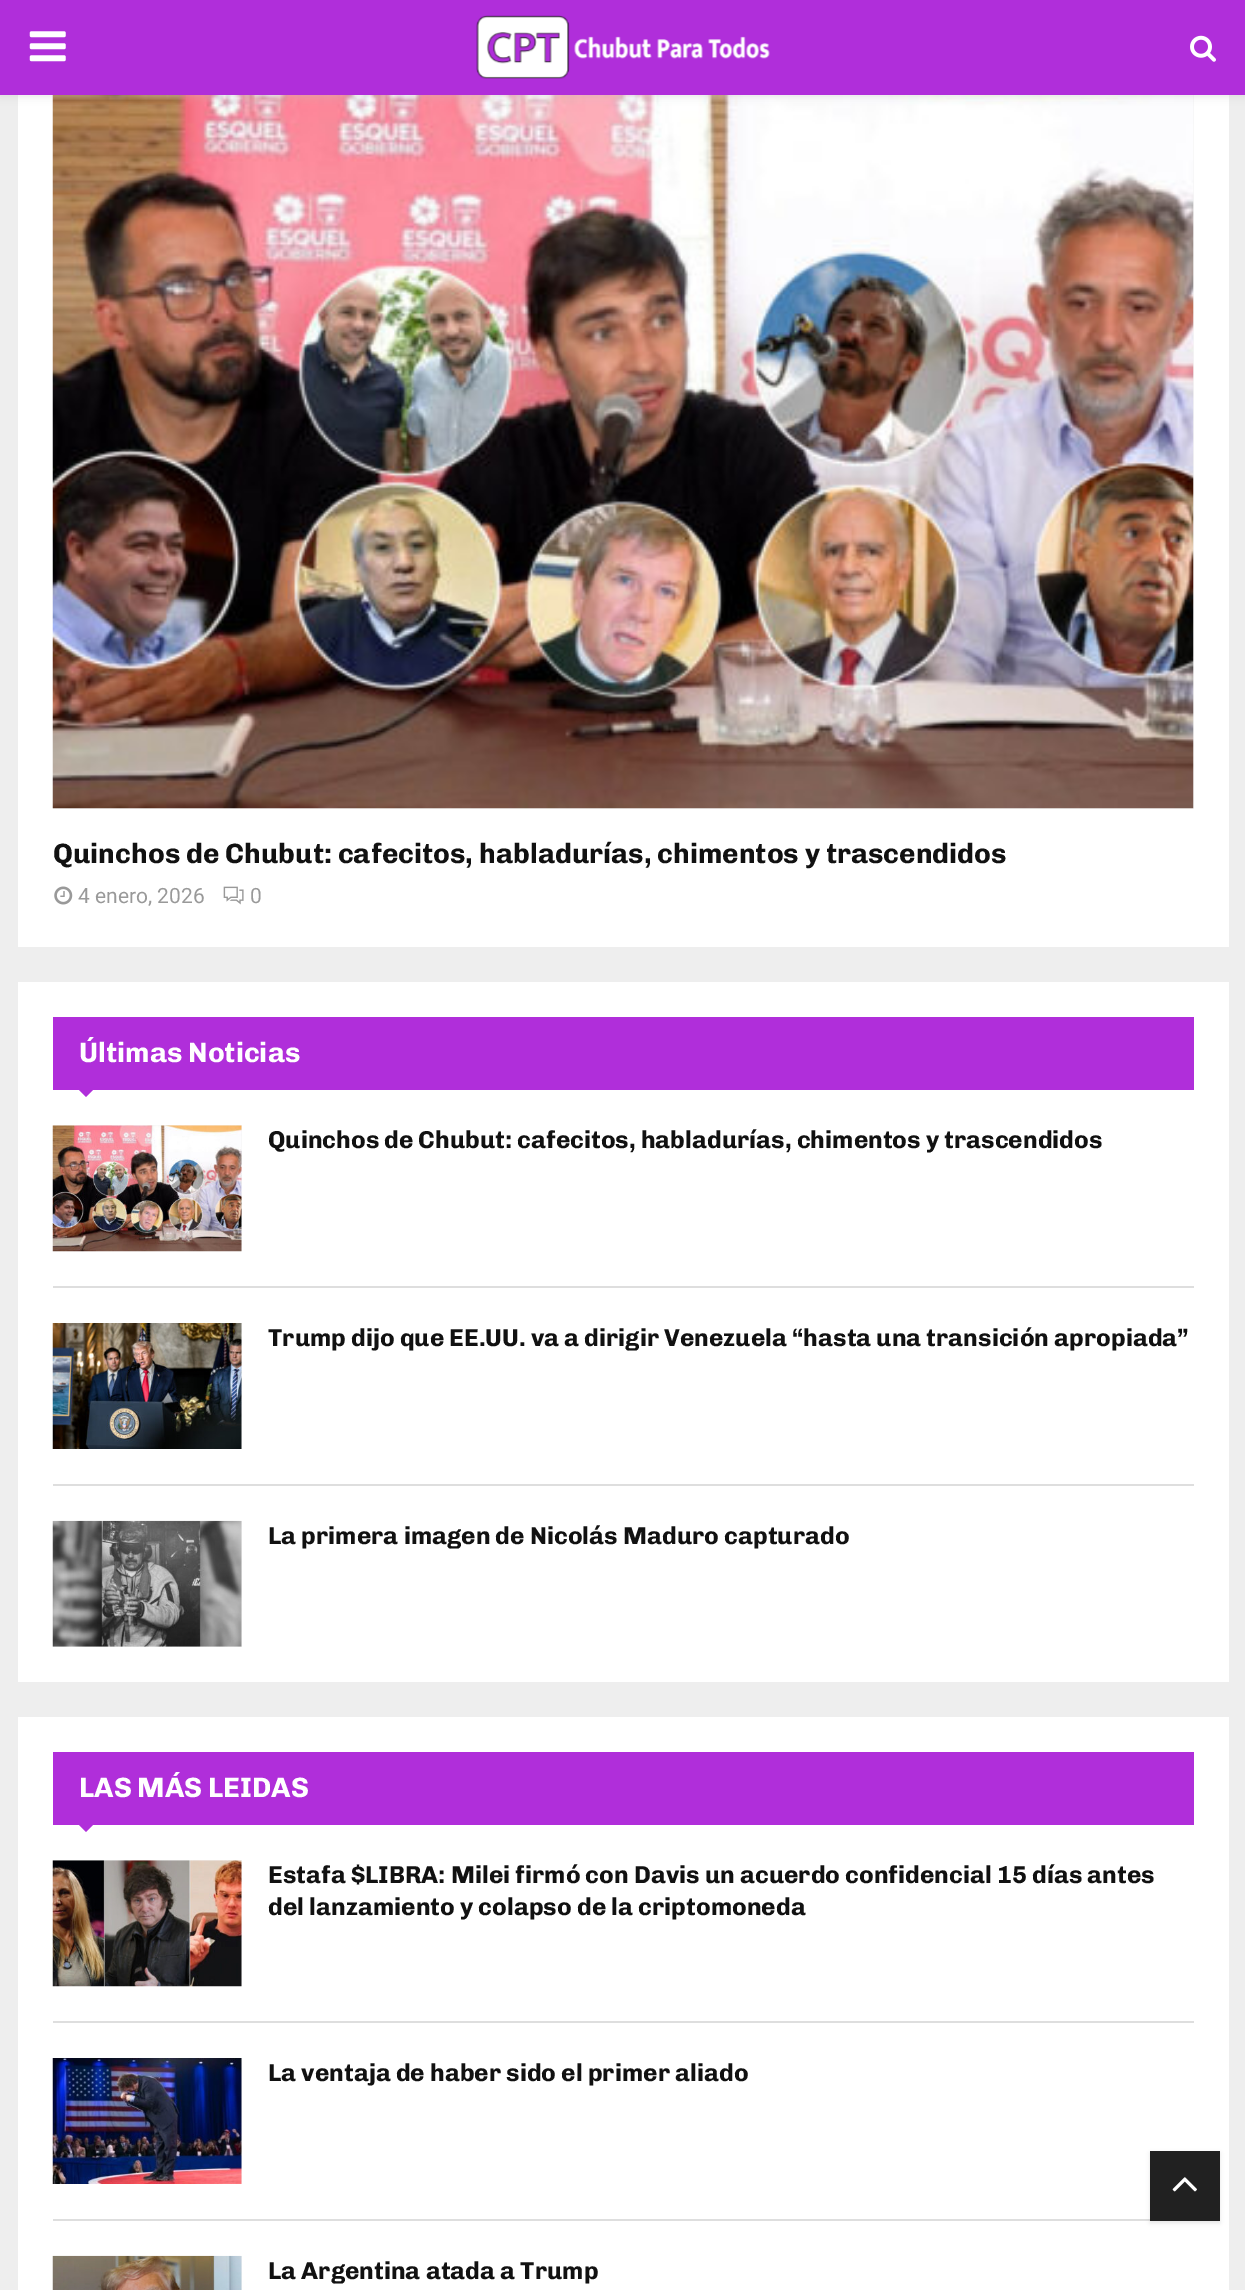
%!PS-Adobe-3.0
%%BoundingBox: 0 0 1245 2290
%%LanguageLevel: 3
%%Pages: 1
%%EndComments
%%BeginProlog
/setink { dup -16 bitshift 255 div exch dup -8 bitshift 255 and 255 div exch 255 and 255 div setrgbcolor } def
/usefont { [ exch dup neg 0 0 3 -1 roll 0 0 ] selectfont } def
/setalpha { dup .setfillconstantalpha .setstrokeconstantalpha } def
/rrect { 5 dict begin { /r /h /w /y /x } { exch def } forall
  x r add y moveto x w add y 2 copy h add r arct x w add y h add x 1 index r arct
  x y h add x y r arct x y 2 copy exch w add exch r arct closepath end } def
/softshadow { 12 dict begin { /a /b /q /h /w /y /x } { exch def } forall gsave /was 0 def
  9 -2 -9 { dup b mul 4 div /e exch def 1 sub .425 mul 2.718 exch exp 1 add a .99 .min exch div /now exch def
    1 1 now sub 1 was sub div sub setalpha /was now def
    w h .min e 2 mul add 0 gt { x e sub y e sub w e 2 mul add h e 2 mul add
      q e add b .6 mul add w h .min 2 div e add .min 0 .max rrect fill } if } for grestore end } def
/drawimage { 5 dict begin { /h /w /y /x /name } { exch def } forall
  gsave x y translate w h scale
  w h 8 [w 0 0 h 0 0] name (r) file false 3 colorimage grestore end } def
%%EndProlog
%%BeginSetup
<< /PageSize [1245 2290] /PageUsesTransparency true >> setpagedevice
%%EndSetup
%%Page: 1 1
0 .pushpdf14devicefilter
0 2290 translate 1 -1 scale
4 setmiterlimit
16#EEEEEE setink
0 0 1245 2290 rectfill
16#FFFFFF setink
18 95 1211 852 rectfill
16#F5F5F5 setink
53 95 1141 714 rectfill
(img4.raw) 52 95 1142 714 drawimage
16#BEBEBE setink
0 2 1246 94 0 4.5 0.46 softshadow
16#B02EDA setink
0 0 1245 95 rectfill
(img1.raw) 29 31 37 31 drawimage
(img2.raw) 476 15 294 64 drawimage
(img3.raw) 1190 35 26 27 drawimage
/Chivo-Bold 28 usefont
16#111111 setink
53 863 moveto (Quinchos de Chubut: cafecitos, habladurías, chimentos y trascendidos) show
(img5.raw) 54 886 19 19 drawimage
/Roboto-Regular 21 usefont
16#999999 setink
78 903 moveto (4 enero, 2026) show
(img6.raw) 223 886 21 19 drawimage
250 903 moveto (0) show
16#FFFFFF setink
18 982 1211 700 rectfill
16#B02EDA setink
53 1017 1141 73 rectfill
/Chivo-Bold 28 usefont
16#FFFFFF setink
79 1062 moveto (Últimas Noticias) show
16#B02EDA setink
79 1090 moveto 93 1090 lineto 86 1097 lineto closepath fill
16#DEDEDE setink
53 1286 1141 2 rectfill
16#F5F5F5 setink
53 1125 189 126 rectfill
(img7.raw) 52 1125 190 127 drawimage
/Chivo-Bold 24.5 usefont
16#111111 setink
268 1148 moveto (Quinchos de Chubut: cafecitos, habladurías, chimentos y trascendidos) show
16#DEDEDE setink
53 1484 1141 2 rectfill
16#F5F5F5 setink
241 1323 1 126 rectfill
(img8.raw) 52 1323 190 126 drawimage
16#111111 setink
268 1346 moveto (Trump dijo que EE.UU. va a dirigir Venezuela “hasta una transición apropiada”) show
16#F5F5F5 setink
53 1521 189 126 rectfill
(img9.raw) 52 1520 190 127 drawimage
16#111111 setink
268 1544 moveto (La primera imagen de Nicolás Maduro capturado) show
16#FFFFFF setink
18 1717 1211 573 rectfill
16#B02EDA setink
53 1752 1141 73 rectfill
/Chivo-Bold 28 usefont
16#FFFFFF setink
79 1797 moveto (LAS MÁS LEIDAS) show
16#B02EDA setink
79 1825 moveto 93 1825 lineto 86 1832 lineto closepath fill
16#DEDEDE setink
53 2021 1141 2 rectfill
16#F5F5F5 setink
53 1860 189 126 rectfill
(img10.raw) 52 1860 190 127 drawimage
/Chivo-Bold 24.5 usefont
16#111111 setink
268 1883 moveto (Estafa $LIBRA: Milei firmó con Davis un acuerdo confidencial 15 días antes) show
268 1915 moveto (del lanzamiento y colapso de la criptomoneda) show
16#DEDEDE setink
53 2219 1097 2 rectfill
16#F5F5F5 setink
241 2058 1 126 rectfill
(img11.raw) 52 2058 190 126 drawimage
16#111111 setink
268 2081 moveto (La ventaja de haber sido el primer aliado) show
16#F5F5F5 setink
241 2256 1 34 rectfill
(img12.raw) 52 2255 190 35 drawimage
16#111111 setink
268 2279 moveto (La Argentina atada a Trump) show
16#000000 setink
1150 2153 70 70 0 2 0.1 softshadow
16#212121 setink
1150 2151 70 70 rectfill
(img13.raw) 1172 2177 25 15 drawimage
.poppdf14devicefilter showpage
%%EOF
